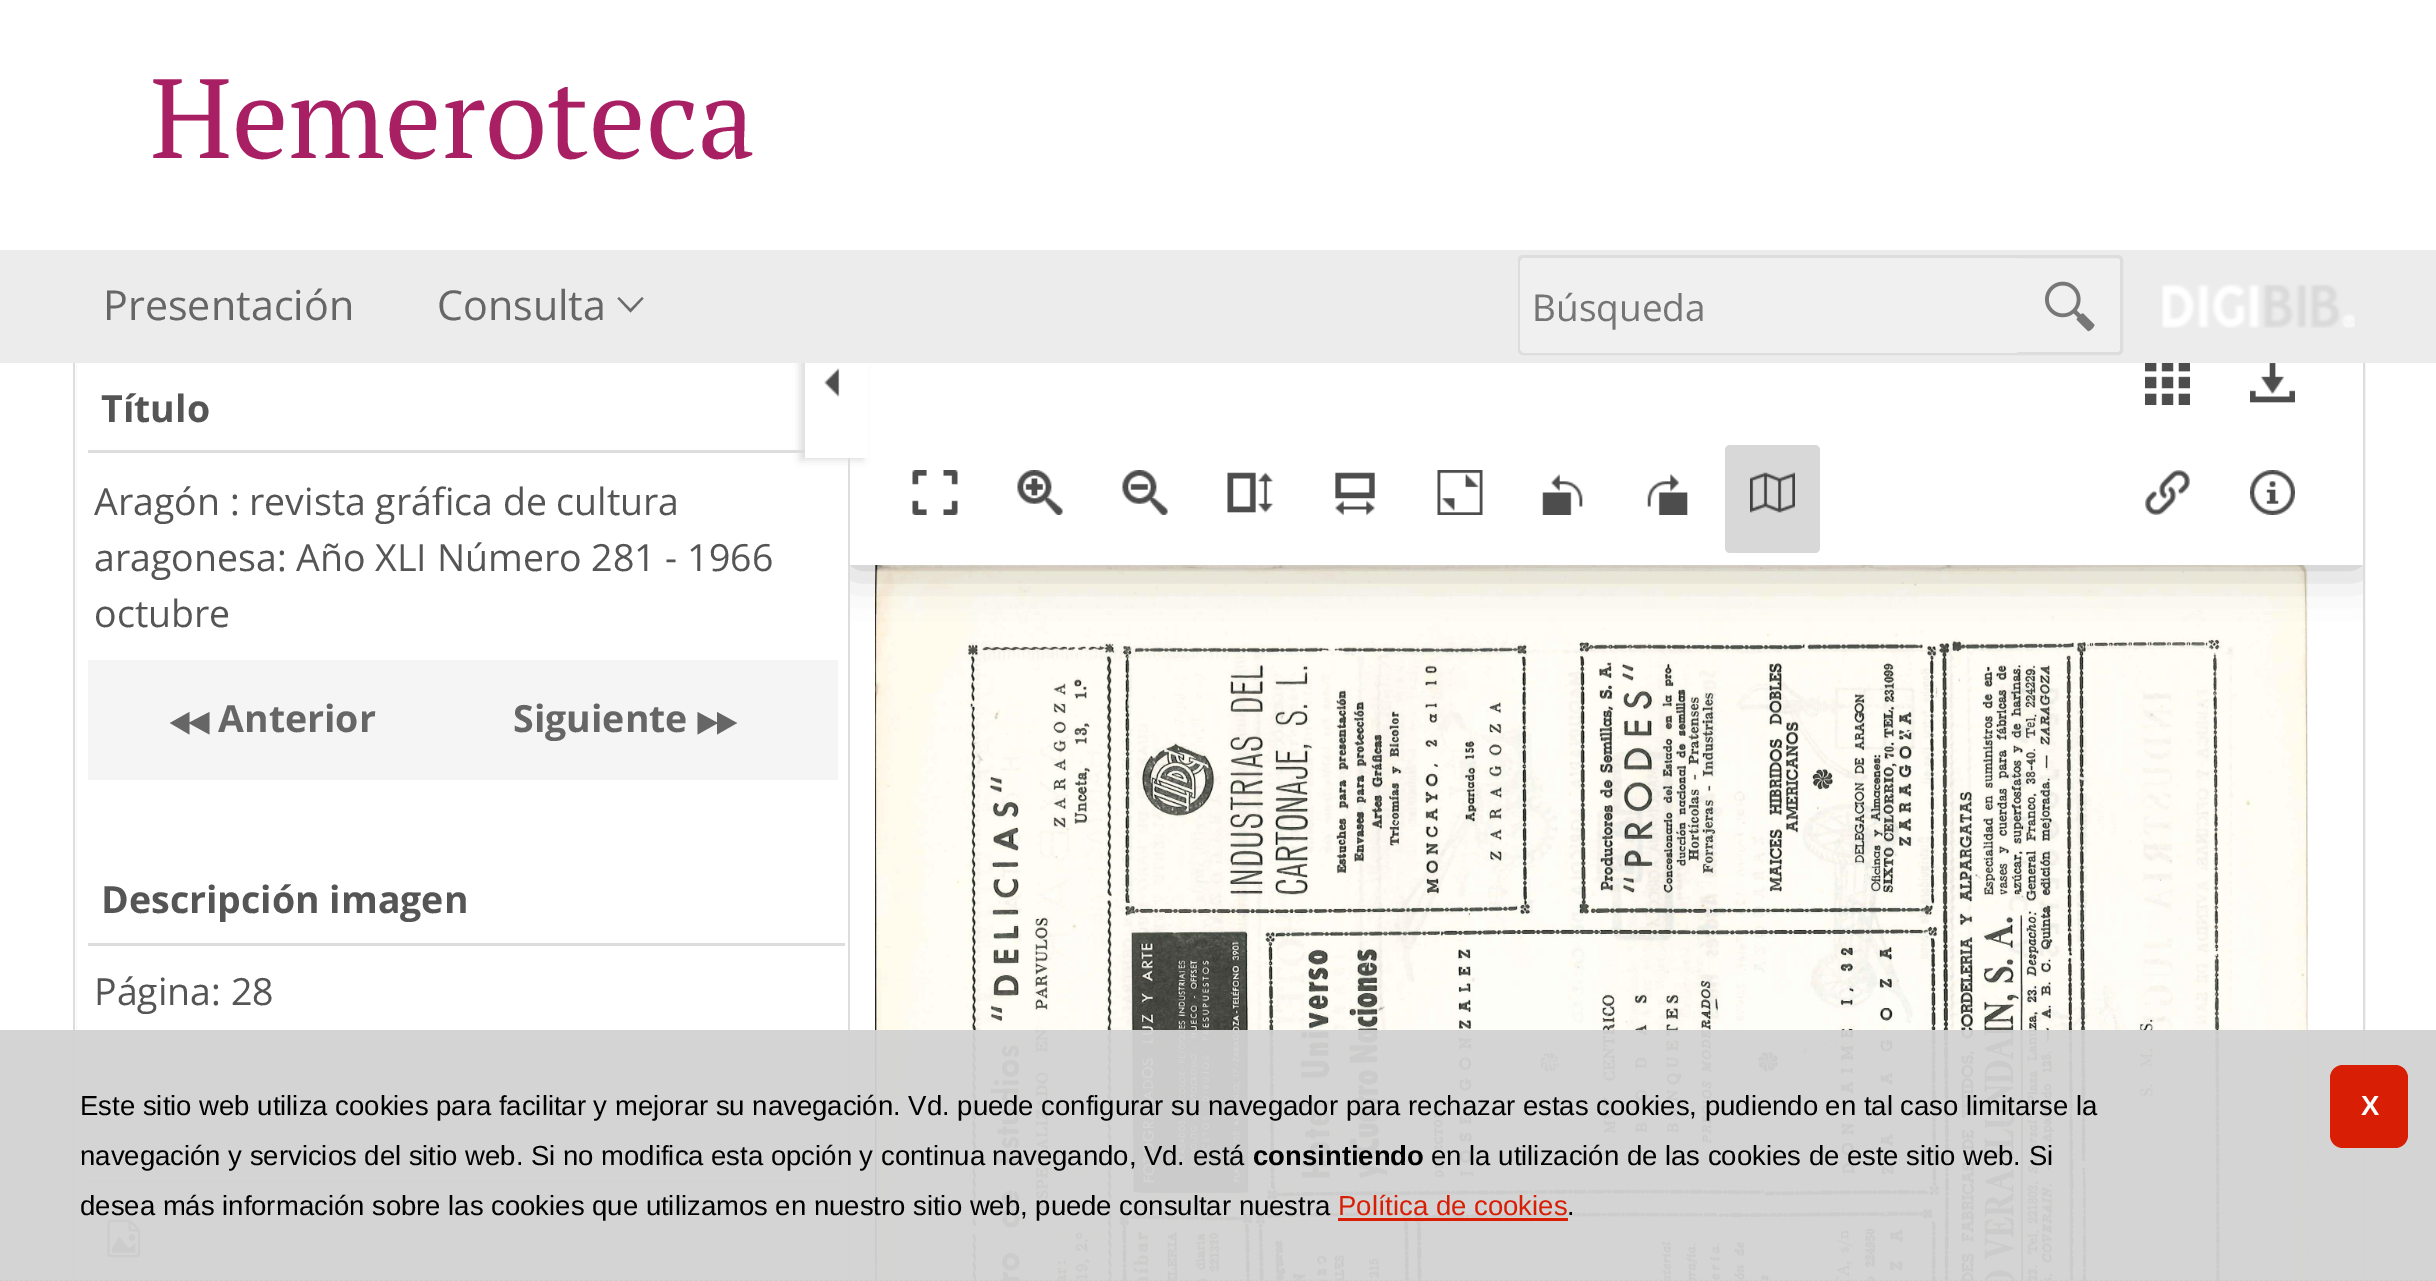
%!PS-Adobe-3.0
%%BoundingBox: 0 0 2436 1281
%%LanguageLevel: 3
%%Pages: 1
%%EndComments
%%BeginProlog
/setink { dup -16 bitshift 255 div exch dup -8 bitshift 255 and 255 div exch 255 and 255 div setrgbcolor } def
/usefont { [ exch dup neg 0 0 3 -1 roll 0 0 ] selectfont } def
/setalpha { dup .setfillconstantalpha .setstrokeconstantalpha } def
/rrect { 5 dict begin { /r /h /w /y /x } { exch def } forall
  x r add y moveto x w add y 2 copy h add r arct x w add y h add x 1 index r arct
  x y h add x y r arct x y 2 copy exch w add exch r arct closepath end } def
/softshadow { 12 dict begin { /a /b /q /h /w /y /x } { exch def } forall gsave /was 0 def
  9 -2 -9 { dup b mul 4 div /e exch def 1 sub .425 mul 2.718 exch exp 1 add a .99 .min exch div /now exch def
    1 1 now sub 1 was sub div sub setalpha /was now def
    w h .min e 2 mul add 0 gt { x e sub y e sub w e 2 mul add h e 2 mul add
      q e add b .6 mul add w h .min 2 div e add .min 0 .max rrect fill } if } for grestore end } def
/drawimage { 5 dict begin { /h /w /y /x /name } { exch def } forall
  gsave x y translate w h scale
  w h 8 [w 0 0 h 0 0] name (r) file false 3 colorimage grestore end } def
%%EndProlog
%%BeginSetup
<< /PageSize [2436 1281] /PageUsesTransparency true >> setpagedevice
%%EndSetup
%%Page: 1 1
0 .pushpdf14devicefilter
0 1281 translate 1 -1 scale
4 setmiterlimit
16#FFFFFF setink
0 0 2436 1281 rectfill
/PTSerif-Regular 112.5 usefont
16#A91F64 setink
150 158 moveto (Hemeroteca) show
16#DDDDDD setink
3 setlinewidth
74.5 321.5 2289 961 rectstroke
848 458 2 823 rectfill
88 450 717 3 rectfill
800 323 63 137 0 4 1 softshadow
16#FFFFFF setink
805 363 63 95 rectfill
(img4.raw) 824 368 16 29 drawimage
2362 363 1 918 rectfill
(img18.raw) 875 565 1433 716 drawimage
gsave
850 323 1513 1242 rectclip
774 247 moveto 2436 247 lineto 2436 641 lineto 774 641 lineto closepath 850 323 moveto 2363 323 lineto 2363 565 lineto 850 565 lineto closepath eoclip newpath
16#000000 setink
850 323 1513 242 0 25 0.3 softshadow
grestore
16#ECECEC setink
0 250 2436 113 rectfill
/OpenSans-Regular 41.25 usefont
16#666666 setink
103 320 moveto (Presentación) show
437 320 moveto (Consulta) show
16#6B6B6B setink
642 297 moveto 643.5 298.5 lineto 630.5 312.5 lineto 617.5 298.5 lineto 619 297 lineto 630.5 309 lineto closepath fill
16#F0F0F0 setink
1519.5 256.5 602 97 3.5 rrect gsave fill grestore
16#DDDDDD setink
stroke
16#F0F0F0 setink
1520 258 500 95 5 rrect fill
/OpenSans-Regular 37 usefont
16#757575 setink
1532 321 moveto (Búsqueda) show
(img1.raw) 2045 281 50 51 drawimage
(img2.raw) 2162 284 193 44 drawimage
16#FFFFFF setink
75 363 1 918 rectfill
/OpenSans-Bold 37.5 usefont
16#555555 setink
101 422 moveto (Título) show
/OpenSans-Regular 37.5 usefont
[
    [(Aragón : revista gráfica de cultura) 94 515]
    [(aragonesa: Año XLI Número 281 - 1966) 94 571]
    [(octubre) 94 627]
] { aload pop moveto show } forall
16#F5F5F5 setink
88 660 750 120 rectfill
16#666666 setink
189.5 712 moveto 189.5 722.5 lineto 209.5 712 lineto 209.5 734.5 lineto 189.5 723.5 lineto 189.5 734.5 lineto 170 723 lineto closepath fill
/OpenSans-Bold 37.5 usefont
218 732 moveto (Anterior) show
513 732 moveto (Siguiente) show
717 712 moveto 737 723 lineto 717 734.5 lineto 717 723.5 lineto 697.5 734.5 lineto 697.5 712 lineto 717 722.5 lineto closepath fill
16#DDDDDD setink
88 943 757 3 rectfill
16#555555 setink
101 913 moveto (Descripción imagen) show
/OpenSans-Regular 37.5 usefont
94 1005 moveto (Página: 28) show
16#DDDDDD setink
88 1180 757 3 rectfill
(img3.raw) 107 1219 34 39 drawimage
(img5.raw) 912 470 46 45 drawimage
(img6.raw) 1017 470 46 45 drawimage
(img7.raw) 1122 470 46 45 drawimage
(img8.raw) 1227 472 46 41 drawimage
(img9.raw) 1335 472 40 43 drawimage
(img10.raw) 1437 470 46 45 drawimage
(img11.raw) 1542 474 41 41 drawimage
(img12.raw) 1647 474 41 41 drawimage
16#D8D8D8 setink
1725 445 95 108 5 rrect fill
(img13.raw) 1750 472 45 41 drawimage
(img14.raw) 2145 363 45 42 drawimage
(img15.raw) 2250 363 45 40 drawimage
(img16.raw) 2145 470 45 45 drawimage
(img17.raw) 2250 470 45 45 drawimage
0.95 setalpha
16#D2D2D2 setink
0 1030 2436 251 rectfill
1 setalpha
16#CCCCCC setink
2.5 setlinewidth
[2.5 2.5] 0 setdash
0 1281 moveto 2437.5 1281 lineto stroke
/LiberationSans-Regular 27.5 usefont
16#000000 setink
80 1115 moveto (Este sitio web utiliza cookies para facilitar y mejorar su navegación. Vd. puede configurar su navegador para rechazar estas cookies, pudiendo en tal caso limitarse la) show
80 1165 moveto (navegación y servicios del sitio web. Si no modifica esta opción y continua navegando, Vd. está) show
/LiberationSans-Bold 27.5 usefont
1253 1165 moveto (consintiendo) show
/LiberationSans-Regular 27.5 usefont
1431 1165 moveto (en la utilización de las cookies de este sitio web. Si) show
80 1215 moveto (desea más información sobre las cookies que utilizamos en nuestro sitio web, puede consultar nuestra) show
16#D81E05 setink
1338 1215 moveto (Política de cookies) show
16#000000 setink
1567 1215 moveto (.) show
16#D81E05 setink
1338 1218 230 3 rectfill
2330 1065 78 83 13 rrect fill
/LiberationSans-Bold 27.5 usefont
16#FFFFFF setink
2361 1115 moveto -1 0 (X) ashow
.poppdf14devicefilter showpage
%%EOF
